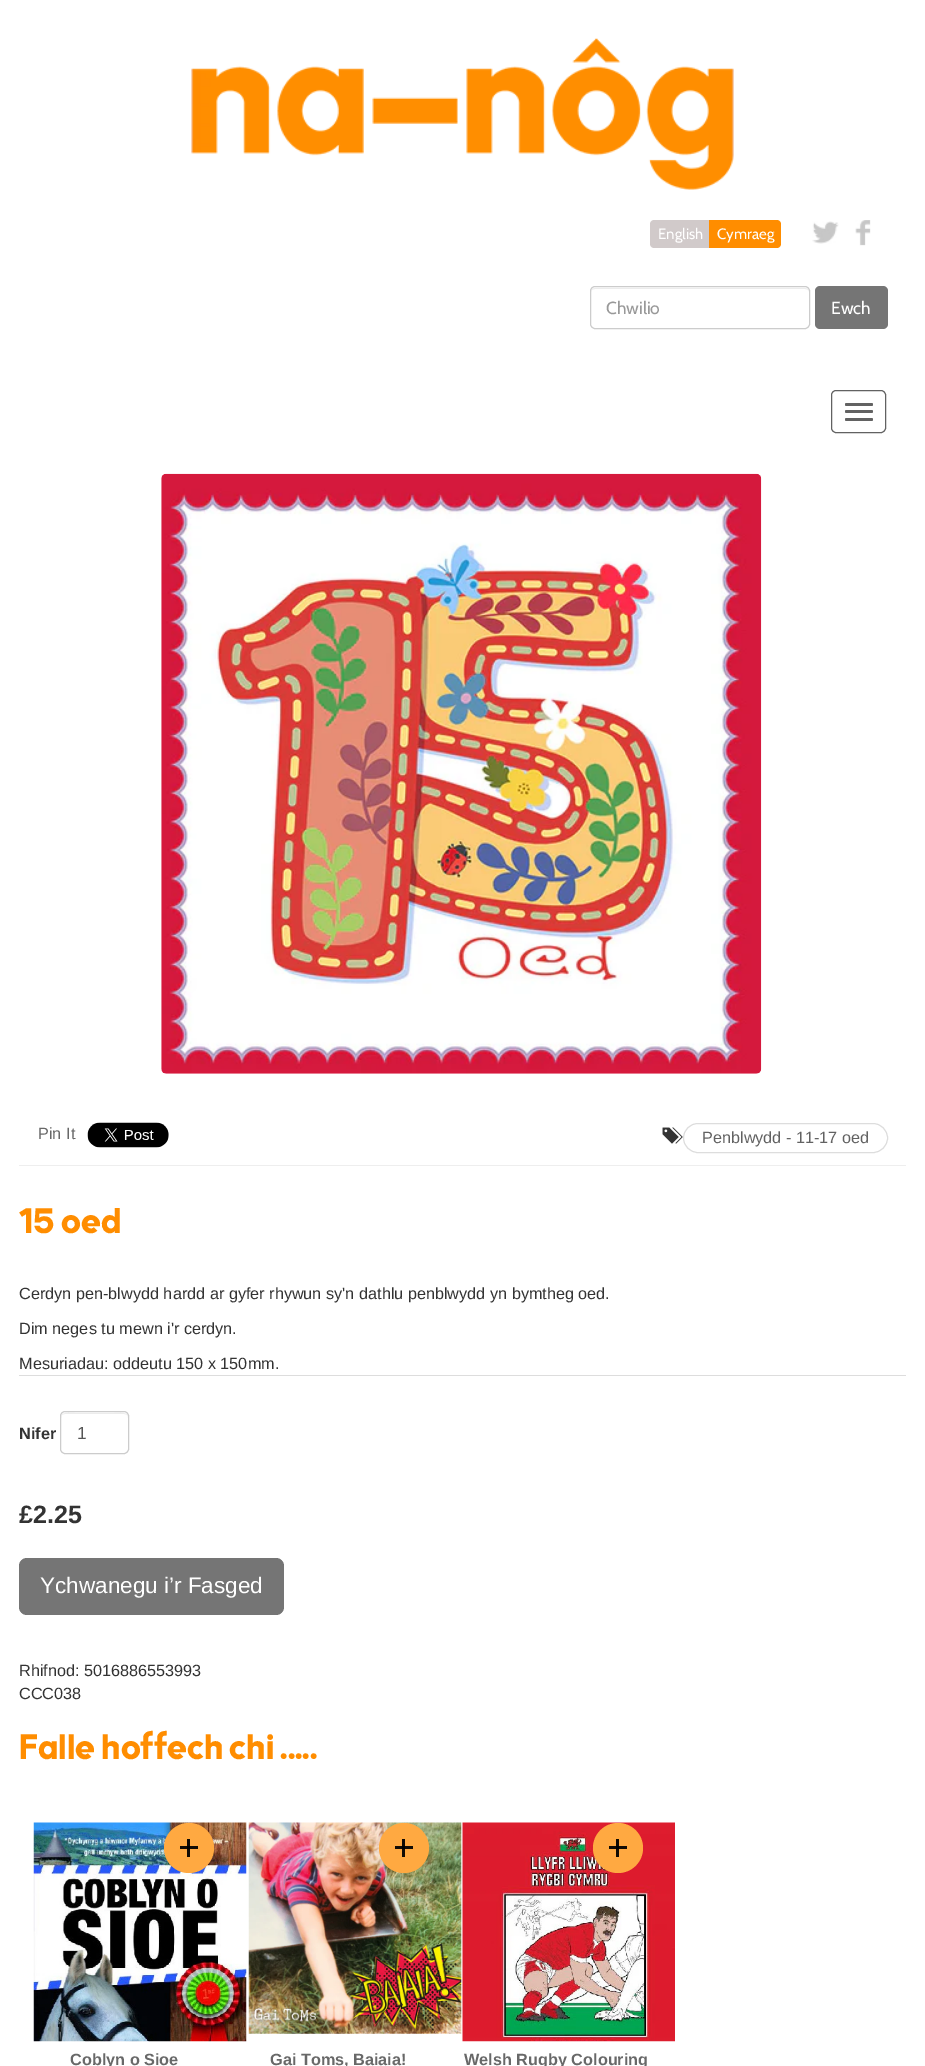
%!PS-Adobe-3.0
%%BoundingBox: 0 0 925 2066
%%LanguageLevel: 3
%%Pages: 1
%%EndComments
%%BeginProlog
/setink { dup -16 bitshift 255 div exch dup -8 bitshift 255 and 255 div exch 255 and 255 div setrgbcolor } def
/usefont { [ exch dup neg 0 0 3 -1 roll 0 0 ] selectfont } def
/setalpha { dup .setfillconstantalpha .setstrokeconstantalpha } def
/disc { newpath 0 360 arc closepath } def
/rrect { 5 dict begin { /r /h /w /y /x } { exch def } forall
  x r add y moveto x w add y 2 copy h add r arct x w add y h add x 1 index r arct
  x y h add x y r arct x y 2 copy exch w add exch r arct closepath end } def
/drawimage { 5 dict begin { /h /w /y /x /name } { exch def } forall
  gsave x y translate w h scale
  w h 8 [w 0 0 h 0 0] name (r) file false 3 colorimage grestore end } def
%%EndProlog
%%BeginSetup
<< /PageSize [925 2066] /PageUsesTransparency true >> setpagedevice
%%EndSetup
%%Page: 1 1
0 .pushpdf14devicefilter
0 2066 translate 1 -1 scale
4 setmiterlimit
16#FFFFFF setink
0 0 925 2066 rectfill
(img1.raw) 191 38 543 152 drawimage
16#D1CACA setink
654 220 moveto 710 220 lineto 710 248 lineto 654 248 lineto 652 248 650 246 650 244 curveto 650 224 lineto 650 222 652 220 654 220 curveto closepath fill
/Cabin-Regular 15 usefont
16#FFFFFF setink
658 239 moveto (English) show
16#FF8D00 setink
709 220 moveto 777 220 lineto 779 220 781 222 781 224 curveto 781 244 lineto 781 246 779 248 777 248 curveto 709 248 lineto closepath fill
16#FFFFFF setink
717 239 moveto (Cymraeg) show
(img2.raw) 812 221 27 23 drawimage
(img3.raw) 855 220 16 26 drawimage
16#ECECEC setink
595 289 moveto 805 289 lineto 807 289 809 290 809 292 curveto 809 290 807 288 805 288 curveto 595 288 lineto 593 288 591 290 591 292 curveto 591 290 593 289 595 289 curveto closepath fill
16#CCCCCC setink
590.5 286.5 219 42 4.5 rrect stroke
/Cabin-Regular 17.5 usefont
16#999999 setink
606 314 moveto (Chwilio) show
16#757575 setink
815 286 73 43 5 rrect fill
16#FFFFFF setink
831 314 moveto (Ewch) show
16#626262 setink
831.5 390.5 54 42 4.5 rrect stroke
845 403 28 3 1.5 rrect fill
845 410 28 3 1.5 rrect fill
845 418 28 3 1.5 rrect fill
(img4.raw) 161 473 601 601 drawimage
/LiberationSans-Regular 16.25 usefont
16#686868 setink
38 1139 moveto (Pin It) show
(img5.raw) 87 1122 82 26 drawimage
(img6.raw) 662 1127 21 17 drawimage
16#DDDDDD setink
683.5 1123.5 204 29 14.5 rrect stroke
16#626262 setink
702 1143 moveto (Penblwydd - 11-17 oed) show
16#EEEEEE setink
19 1165 887 1 rectfill
/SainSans-Bold 37.5 usefont
16#FF8D00 setink
19 1233 moveto (15 oed) show
16#DDDDDD setink
19 1375 887 1 rectfill
/LiberationSans-Regular 16.25 usefont
16#333333 setink
[
    [(Cerdyn pen-blwydd hardd ar gyfer rhywun sy'n dathlu penblwydd yn bymtheg oed.) 19 1299]
    [(Dim neges tu mewn i'r cerdyn.) 19 1334]
    [(Mesuriadau: oddeutu 150 x 150mm.) 19 1369]
] { aload pop moveto show } forall
/LiberationSans-Bold 16.25 usefont
19 1439 moveto (Nifer) show
16#ECECEC setink
65 1414 moveto 124 1414 lineto 126 1414 128 1415 128 1418 curveto 128 1411 119 1413 114 1413 curveto 75 1413 lineto 70 1413 61 1411 61 1418 curveto 61 1415 63 1414 65 1414 curveto closepath fill
16#CCCCCC setink
60.5 1411.5 68 42 4.5 rrect stroke
/LiberationSans-Regular 17.5 usefont
16#555555 setink
77 1439 moveto (1) show
/LiberationSans-Bold 25 usefont
16#333333 setink
19 1523 moveto (£2.25) show
16#757575 setink
19 1558 265 57 8 rrect fill
/LiberationSans-Regular 22.5 usefont
16#FFFFFF setink
40 1593 moveto (Ychwanegu i’r Fasged) show
/LiberationSans-Regular 16.25 usefont
16#333333 setink
19 1676 moveto (Rhifnod: 5016886553993) show
19 1699 moveto (CCC038) show
/SainSans-Bold 37.5 usefont
16#FF8D00 setink
19 1759 moveto (Falle hoffech chi .....) show
(img7.raw) 33 1822 214 220 drawimage
16#FFA941 setink
189 1848 25 disc fill
16#110B04 setink
187 1839 3 18 rectfill
0.93 setalpha
16#000000 setink
180 1846 18 3 rectfill
/LiberationSans-Bold 16.25 usefont
1 setalpha
16#686868 setink
70 2065 moveto (Coblyn o Sioe) show
(img8.raw) 248 1822 214 212 drawimage
16#FFA941 setink
404 1848 25 disc fill
16#110B04 setink
402 1839 3 18 rectfill
0.93 setalpha
16#000000 setink
395 1846 18 3 rectfill
1 setalpha
16#686868 setink
270 2065 moveto (Gai Toms, Baiaia!) show
(img9.raw) 462 1822 213 220 drawimage
16#FFA941 setink
618 1848 25 disc fill
16#110B04 setink
616 1839 3 18 rectfill
0.93 setalpha
16#000000 setink
609 1846 18 3 rectfill
1 setalpha
16#686868 setink
464 2065 moveto (Welsh Rugby Colouring) show
.poppdf14devicefilter showpage
%%EOF
